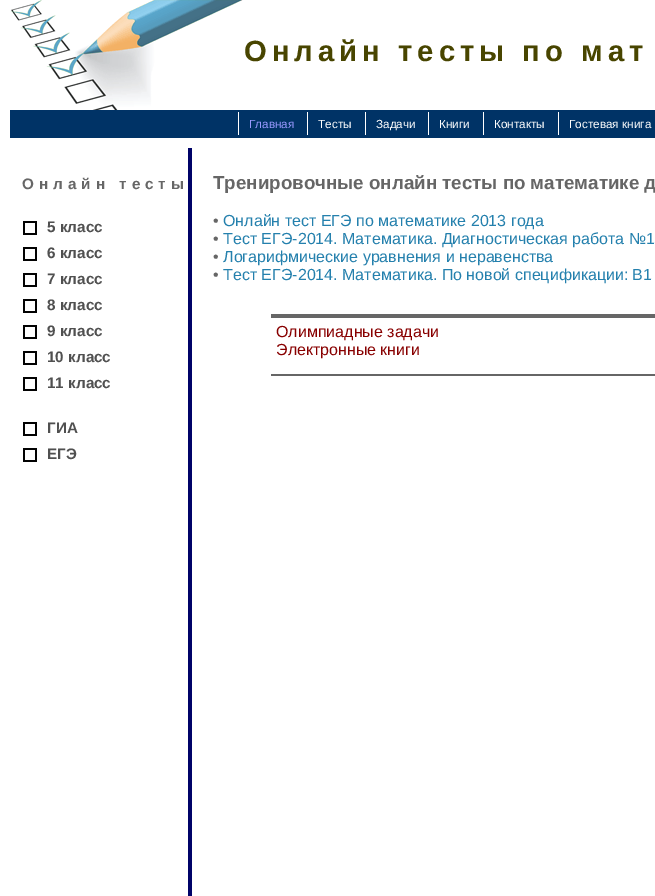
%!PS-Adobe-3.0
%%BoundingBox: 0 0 655 896
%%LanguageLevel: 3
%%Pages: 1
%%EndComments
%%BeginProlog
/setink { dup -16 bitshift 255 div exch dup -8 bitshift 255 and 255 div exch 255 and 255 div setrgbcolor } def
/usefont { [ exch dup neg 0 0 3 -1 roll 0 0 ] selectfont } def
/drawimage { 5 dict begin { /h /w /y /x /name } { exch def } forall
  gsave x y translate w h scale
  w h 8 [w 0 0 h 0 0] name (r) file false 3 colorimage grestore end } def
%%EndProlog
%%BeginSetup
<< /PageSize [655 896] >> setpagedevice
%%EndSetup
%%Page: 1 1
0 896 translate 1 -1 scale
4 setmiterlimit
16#FFFFFF setink
0 0 655 896 rectfill
16#000368 setink
188 148 4 748 rectfill
(img1.raw) 10 0 233 110 drawimage
/LiberationSans-Bold 29.25 usefont
16#484500 setink
244 61 moveto 5 0 (Онлайн тесты по мат) ashow
16#003366 setink
10 110 645 28 rectfill
/LiberationSans-Regular 11.75 usefont
16#9999FF setink
249 128 moveto (Главная) show
16#FFFFFF setink
238 112 1 23 rectfill
318 128 moveto (Тесты) show
307 112 1 23 rectfill
376 128 moveto (Задачи) show
365 112 1 23 rectfill
439 128 moveto (Книги) show
428 112 1 23 rectfill
494 128 moveto (Контакты) show
483 112 1 23 rectfill
569 128 moveto (Гостевая книга) show
558 112 1 23 rectfill
/LiberationSans-Bold 15.25 usefont
16#666666 setink
22 189 moveto 5 0 (Онлайн тесты) ashow
(img2.raw) 23 221 14 14 drawimage
16#505050 setink
47 232 moveto (5 класс) show
(img2.raw) 23 247 14 14 drawimage
47 258 moveto (6 класс) show
(img2.raw) 23 273 14 14 drawimage
47 284 moveto (7 класс) show
(img2.raw) 23 299 14 14 drawimage
47 310 moveto (8 класс) show
(img2.raw) 23 325 14 14 drawimage
47 336 moveto (9 класс) show
(img2.raw) 23 351 14 14 drawimage
47 362 moveto (10 класс) show
(img2.raw) 23 377 14 14 drawimage
47 388 moveto (11 класс) show
(img2.raw) 23 422 14 14 drawimage
47 433 moveto (ГИА) show
(img2.raw) 23 448 14 14 drawimage
47 459 moveto (ЕГЭ) show
/LiberationSans-Bold 18.75 usefont
16#666666 setink
213 189 moveto (Тренировочные онлайн тесты по математике д) show
/LiberationSans-Regular 16 usefont
213 226 moveto (•) show
16#2480AD setink
223 226 moveto (Онлайн тест ЕГЭ по математике 2013 года) show
16#666666 setink
213 244 moveto (•) show
16#2480AD setink
223 244 moveto (Тест ЕГЭ-2014. Математика. Диагностическая работа №1) show
16#666666 setink
213 262 moveto (•) show
16#2480AD setink
223 262 moveto (Логарифмические уравнения и неравенства) show
16#666666 setink
213 280 moveto (•) show
16#2480AD setink
223 280 moveto (Тест ЕГЭ-2014. Математика. По новой спецификации: В1) show
16#666666 setink
271 314 384 4 rectfill
271 374 384 2 rectfill
16#880000 setink
276 337 moveto (Олимпиадные задачи) show
276 355 moveto (Электронные книги) show
showpage
%%EOF
